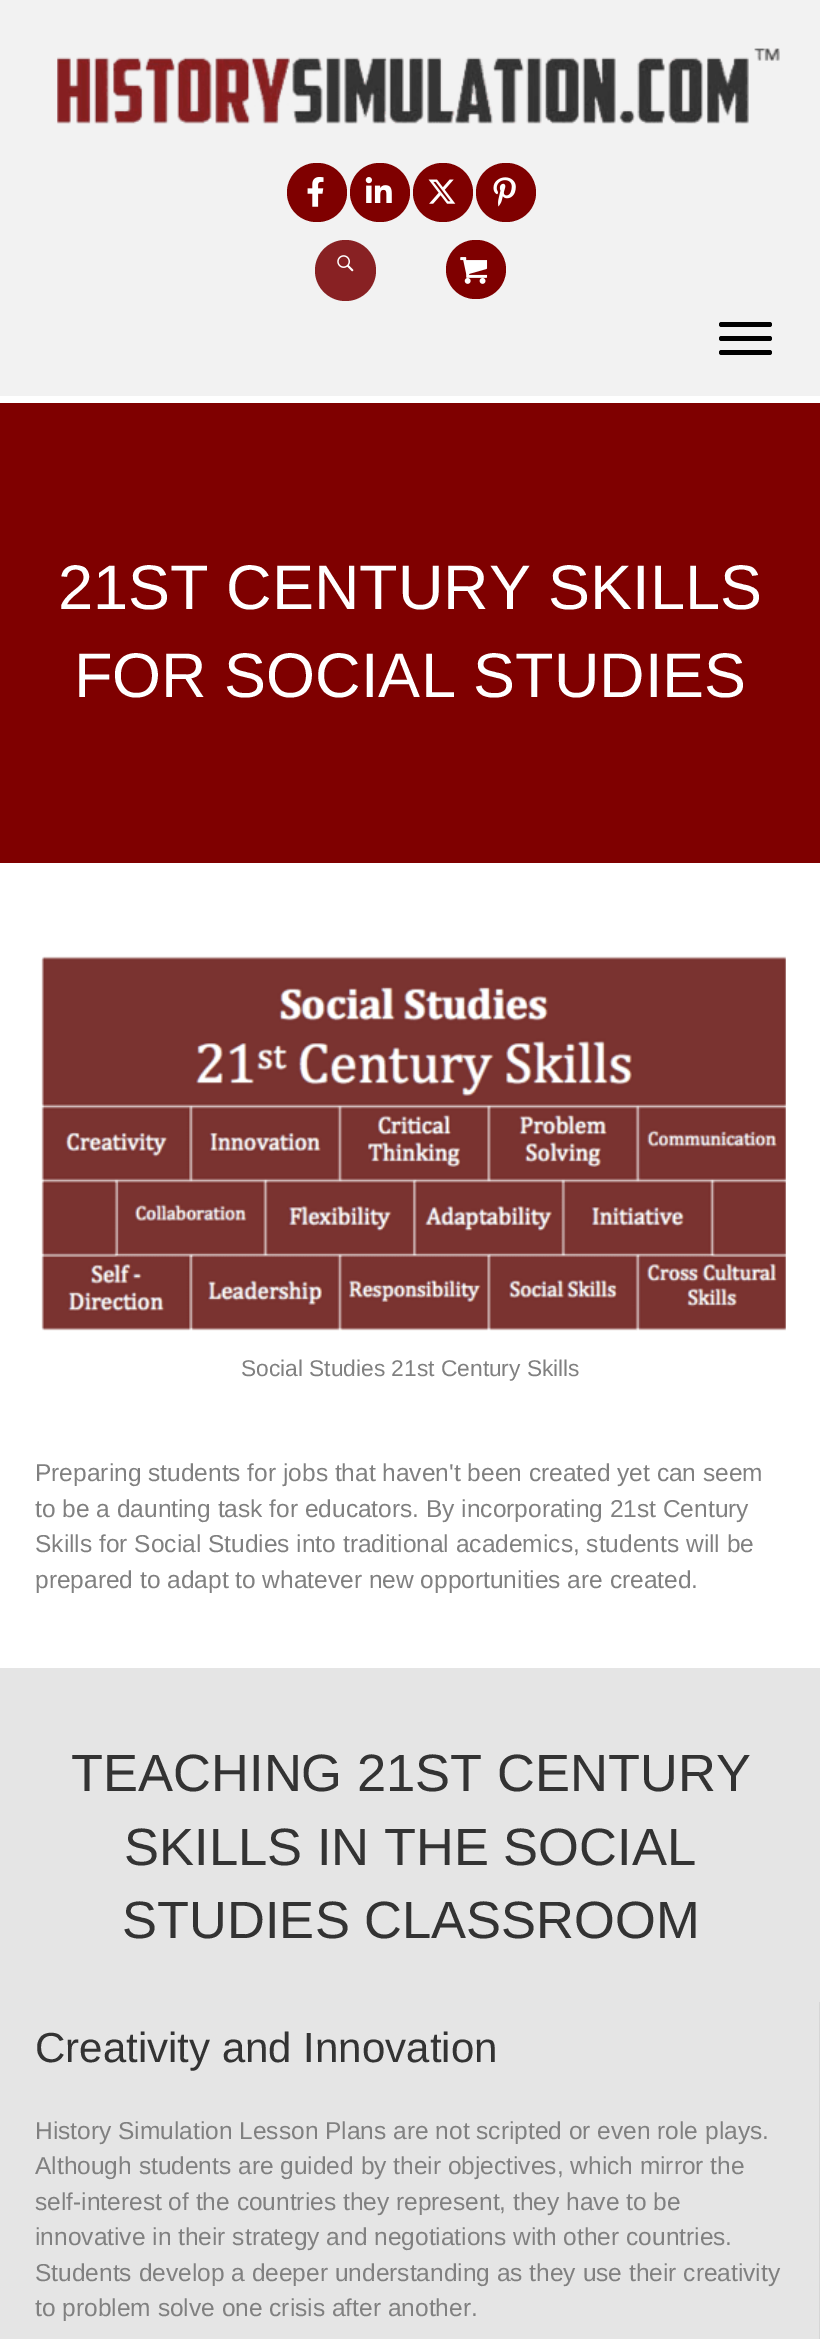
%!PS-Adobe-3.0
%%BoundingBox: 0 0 820 2339
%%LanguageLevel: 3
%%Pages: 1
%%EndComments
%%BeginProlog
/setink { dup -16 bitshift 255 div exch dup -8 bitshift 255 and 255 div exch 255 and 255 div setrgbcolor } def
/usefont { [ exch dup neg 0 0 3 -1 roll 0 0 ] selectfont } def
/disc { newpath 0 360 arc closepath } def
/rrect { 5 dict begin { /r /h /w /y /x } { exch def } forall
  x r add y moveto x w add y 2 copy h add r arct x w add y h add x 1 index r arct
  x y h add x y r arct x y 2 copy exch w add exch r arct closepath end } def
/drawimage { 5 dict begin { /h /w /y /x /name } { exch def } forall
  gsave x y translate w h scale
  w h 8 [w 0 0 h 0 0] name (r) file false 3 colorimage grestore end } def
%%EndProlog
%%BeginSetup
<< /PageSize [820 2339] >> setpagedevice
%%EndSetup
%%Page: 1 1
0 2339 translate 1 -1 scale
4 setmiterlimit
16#F2F2F2 setink
0 0 820 2339 rectfill
(img1.raw) 57 48 723 76 drawimage
16#7F0000 setink
287 163 60 59 29.5 rrect fill
(img2.raw) 307 177 17 30 drawimage
350 163 60 59 29.5 rrect fill
(img3.raw) 365 177 27 26 drawimage
413 163 60 59 29.5 rrect fill
(img4.raw) 428 179 28 25 drawimage
476 163 60 59 29.5 rrect fill
(img5.raw) 493 177 23 30 drawimage
16#882123 setink
345.5 270.5 30.5 disc fill
(img6.raw) 337 255 17 17 drawimage
16#7F0000 setink
446 240 60 59 29.5 rrect fill
(img7.raw) 460 257 28 27 drawimage
16#010101 setink
719 336 53 5 2.5 rrect fill
719 322 53 5 2.5 rrect fill
719 350 53 5 2.5 rrect fill
16#FFFFFF setink
0 396 820 1272 rectfill
16#7F0000 setink
0 403 820 460 rectfill
/LiberationSans-Regular 63 usefont
16#FFFFFF setink
58 609 moveto (21ST CENTURY SKILLS) show
74 697 moveto (FOR SOCIAL STUDIES) show
(img8.raw) 41 956 745 375 drawimage
/LiberationSans-Regular 22.75 usefont
16#808080 setink
241 1376 moveto (Social Studies 21st Century Skills) show
/LiberationSans-Regular 24.5 usefont
[
    [(Preparing students for jobs that haven't been created yet can seem) 35 1481]
    [(to be a daunting task for educators. By incorporating 21st Century) 35 1517]
    [(Skills for Social Studies into traditional academics, students will be) 35 1552]
    [(prepared to adapt to whatever new opportunities are created.) 35 1588]
] { aload pop moveto show } forall
16#E5E5E5 setink
0 1668 820 671 rectfill
/LiberationSans-Regular 52.5 usefont
16#333333 setink
[
    [(TEACHING 21ST CENTURY) 71 1791]
    [(SKILLS IN THE SOCIAL) 124 1865]
    [(STUDIES CLASSROOM) 122 1938]
] { aload pop moveto show } forall
16#D6D6D6 setink
819 2002 1 337 rectfill
/LiberationSans-Regular 42 usefont
16#333333 setink
35 2062 moveto (Creativity and Innovation) show
/LiberationSans-Regular 24.5 usefont
16#808080 setink
[
    [(History Simulation Lesson Plans are not scripted or even role plays.) 35 2139]
    [(Although students are guided by their objectives, which mirror the) 35 2174]
    [(self-interest of the countries they represent, they have to be) 35 2210]
    [(innovative in their strategy and negotiations with other countries.) 35 2245]
    [(Students develop a deeper understanding as they use their creativity) 35 2281]
    [(to problem solve one crisis after another.) 35 2316]
] { aload pop moveto show } forall
showpage
%%EOF
